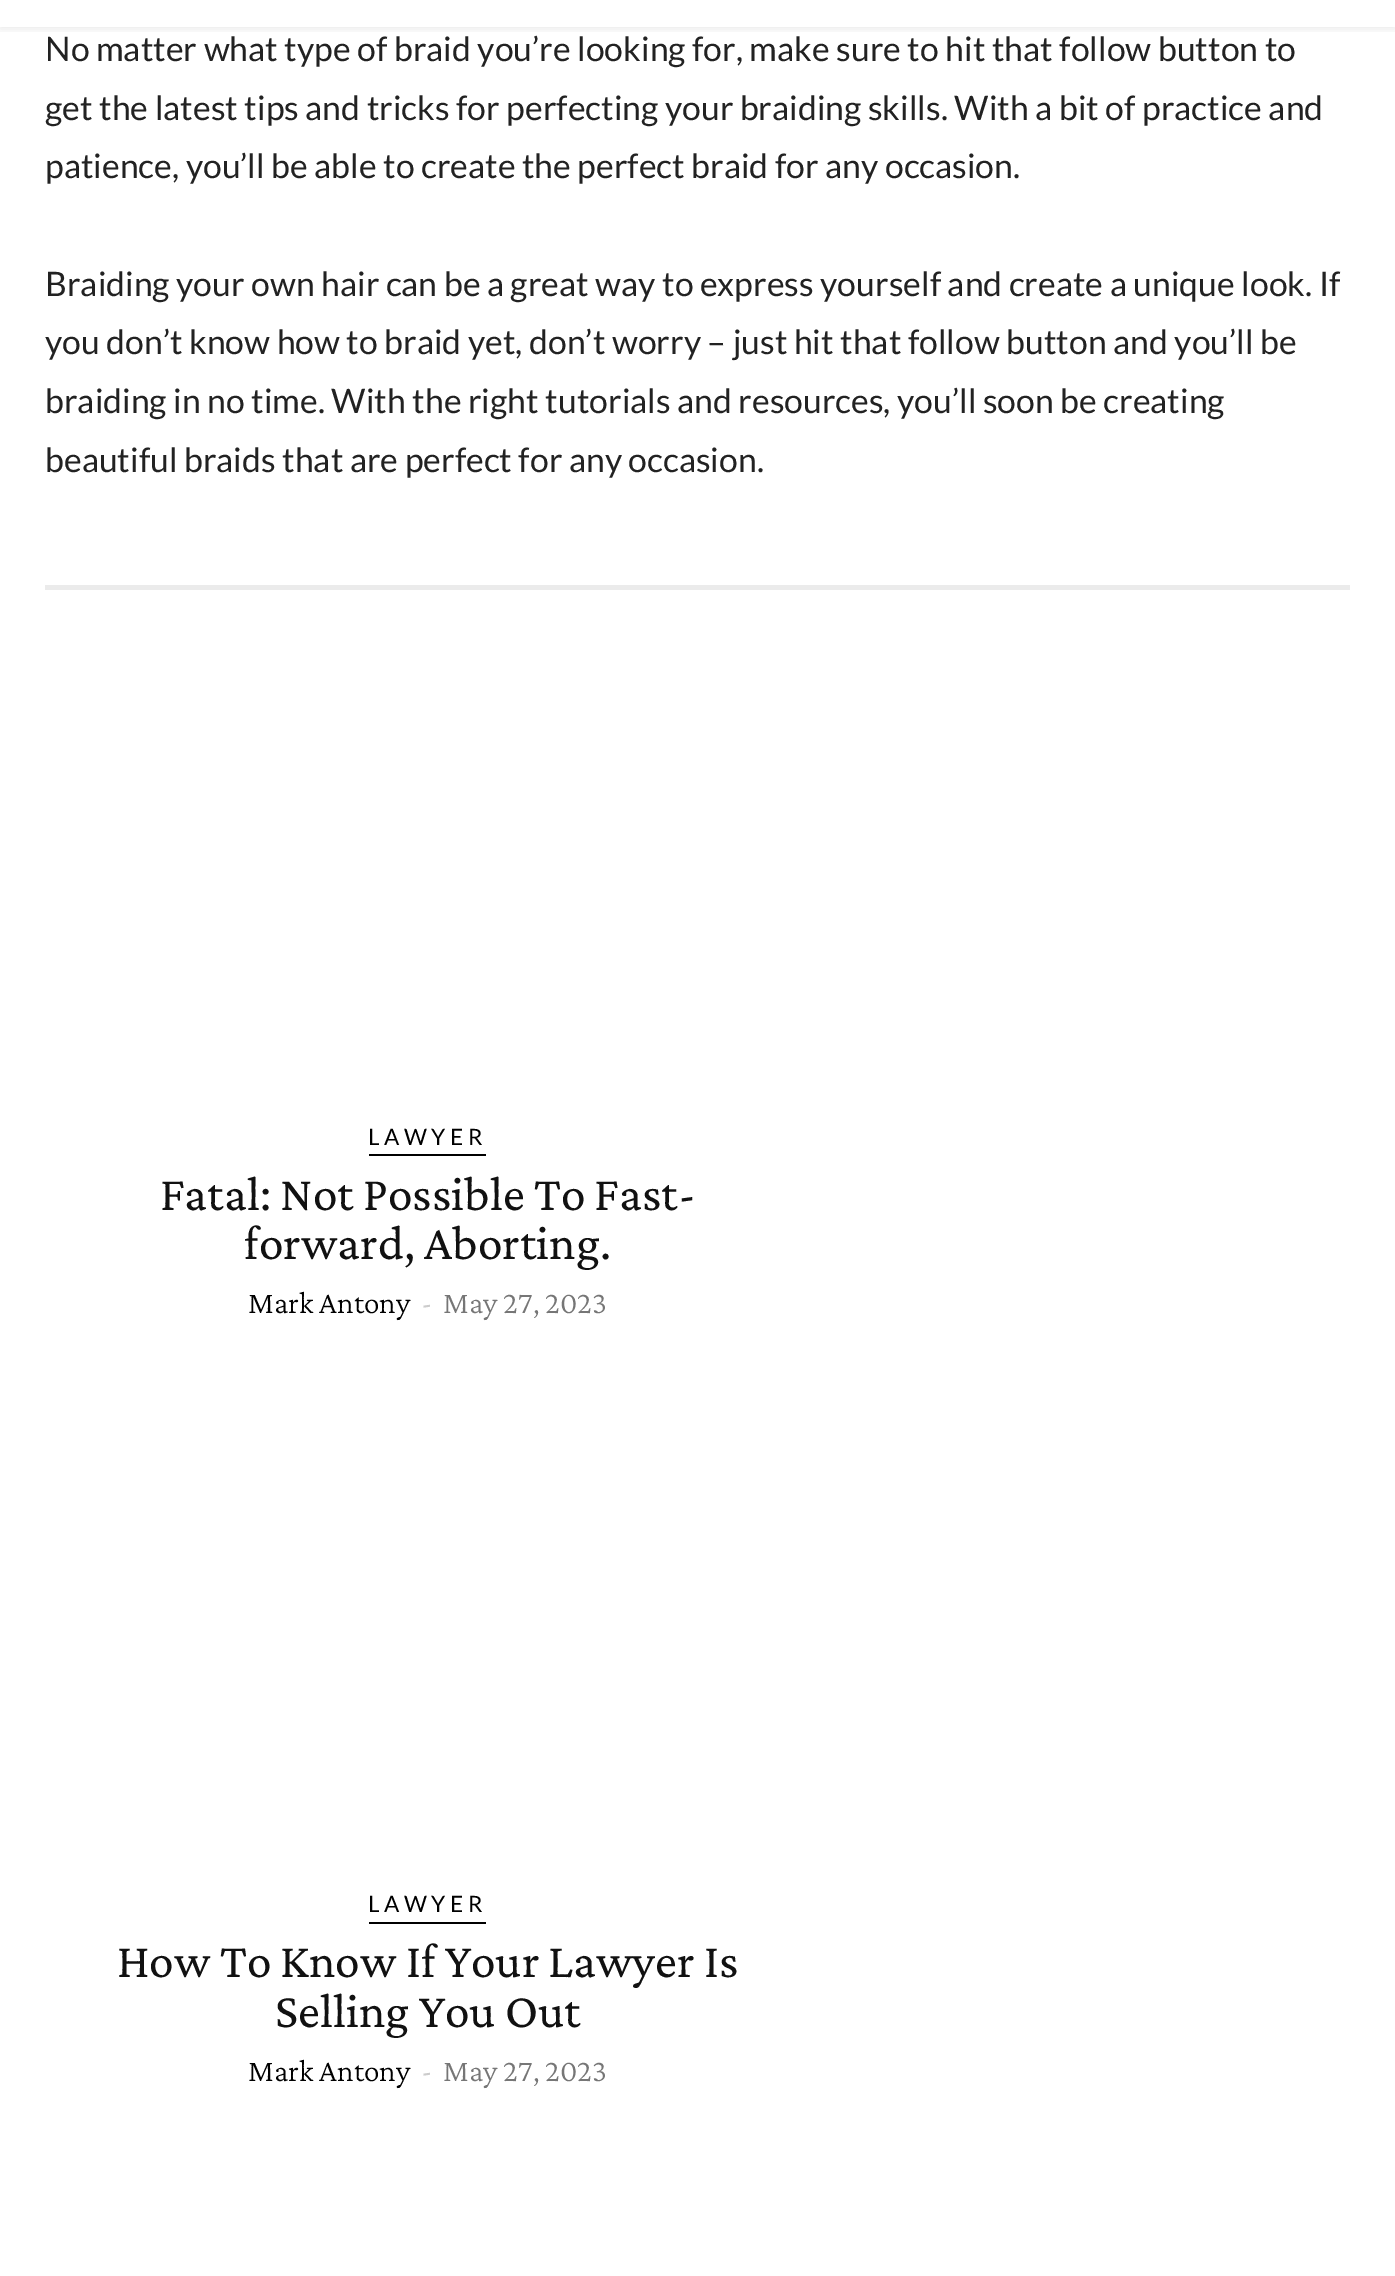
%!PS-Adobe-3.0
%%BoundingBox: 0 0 1395 2276
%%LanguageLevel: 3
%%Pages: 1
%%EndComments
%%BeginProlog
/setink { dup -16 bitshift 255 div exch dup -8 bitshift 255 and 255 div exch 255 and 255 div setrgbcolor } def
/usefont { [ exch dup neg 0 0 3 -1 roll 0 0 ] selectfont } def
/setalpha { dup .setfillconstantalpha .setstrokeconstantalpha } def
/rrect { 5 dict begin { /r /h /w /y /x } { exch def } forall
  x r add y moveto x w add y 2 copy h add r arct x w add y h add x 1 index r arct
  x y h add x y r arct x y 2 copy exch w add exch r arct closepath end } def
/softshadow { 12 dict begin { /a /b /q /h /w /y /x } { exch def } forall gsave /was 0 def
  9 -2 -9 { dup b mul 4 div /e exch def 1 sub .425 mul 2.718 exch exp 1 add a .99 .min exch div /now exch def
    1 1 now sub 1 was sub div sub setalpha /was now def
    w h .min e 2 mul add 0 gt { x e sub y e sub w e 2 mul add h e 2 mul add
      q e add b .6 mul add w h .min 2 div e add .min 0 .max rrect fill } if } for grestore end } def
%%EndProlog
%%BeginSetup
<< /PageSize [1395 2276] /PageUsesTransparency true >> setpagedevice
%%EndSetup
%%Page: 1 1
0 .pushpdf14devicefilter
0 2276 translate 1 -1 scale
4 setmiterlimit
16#FFFFFF setink
0 0 1395 2276 rectfill
gsave
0 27 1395 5 rectclip
16#000000 setink
0 2 1395 27 0 4.5 0.08 softshadow
grestore
/Lato-Regular 33.75 usefont
16#222222 setink
[
    [(No matter what type of braid you’re looking for, make sure to hit that follow button to) 45 61]
    [(get the latest tips and tricks for perfecting your braiding skills. With a bit of practice and) 45 120]
    [(patience, you’ll be able to create the perfect braid for any occasion.) 45 178]
    [(Braiding your own hair can be a great way to express yourself and create a unique look. If) 45 296]
    [(you don’t know how to braid yet, don’t worry – just hit that follow button and you’ll be) 45 354]
    [(braiding in no time. With the right tutorials and resources, you’ll soon be creating) 45 413]
    [(beautiful braids that are perfect for any occasion.) 45 472]
] { aload pop moveto show } forall
16#EBEBEB setink
45 585 1305 5 rectfill
16#000000 setink
369 1154 117 2 rectfill
/Lato-Regular 22.5 usefont
368 1145 moveto 4.5 0 (LAWYER) ashow
/CrimsonPro-Regular 49.5 usefont
16#111111 setink
160 1210 moveto (Fatal: Not Possible To Fast-) show
244 1259 moveto (forward, Aborting.) show
/CrimsonPro-Light 31.5 usefont
16#000000 setink
248 1313 moveto (Mark Antony) show
/CrimsonPro-Regular 31.5 usefont
16#CCCCCC setink
421 1313 moveto (-) show
/CrimsonPro-Light 31.5 usefont
16#767676 setink
443 1313 moveto (May 27, 2023) show
16#000000 setink
369 1922 117 2 rectfill
/Lato-Regular 22.5 usefont
368 1912 moveto 4.5 0 (LAWYER) ashow
/CrimsonPro-Regular 49.5 usefont
16#111111 setink
117 1977 moveto (How To Know If Your Lawyer Is) show
275 2027 moveto (Selling You Out) show
/CrimsonPro-Light 31.5 usefont
16#000000 setink
248 2081 moveto (Mark Antony) show
/CrimsonPro-Regular 31.5 usefont
16#CCCCCC setink
421 2081 moveto (-) show
/CrimsonPro-Light 31.5 usefont
16#767676 setink
443 2081 moveto (May 27, 2023) show
.poppdf14devicefilter showpage
%%EOF
